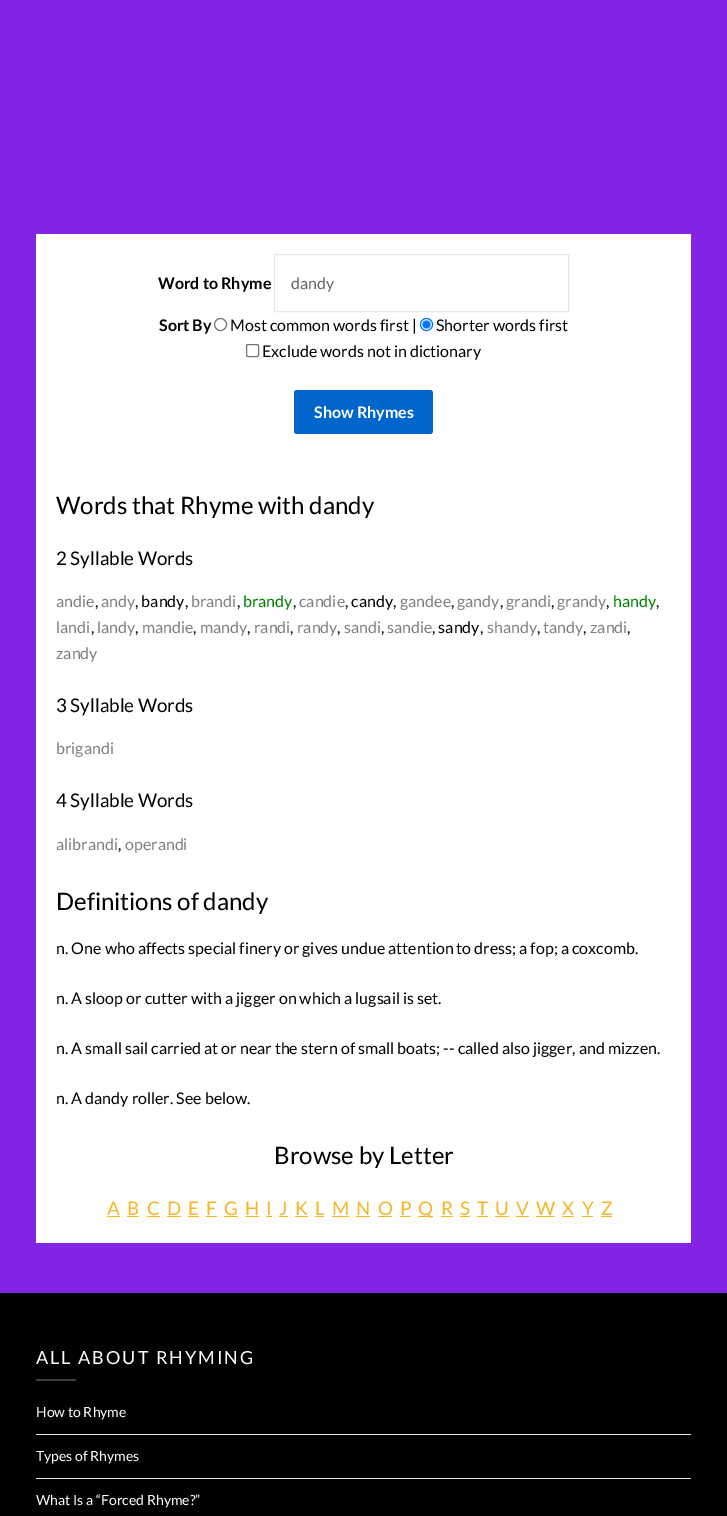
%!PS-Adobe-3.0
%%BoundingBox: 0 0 727 1516
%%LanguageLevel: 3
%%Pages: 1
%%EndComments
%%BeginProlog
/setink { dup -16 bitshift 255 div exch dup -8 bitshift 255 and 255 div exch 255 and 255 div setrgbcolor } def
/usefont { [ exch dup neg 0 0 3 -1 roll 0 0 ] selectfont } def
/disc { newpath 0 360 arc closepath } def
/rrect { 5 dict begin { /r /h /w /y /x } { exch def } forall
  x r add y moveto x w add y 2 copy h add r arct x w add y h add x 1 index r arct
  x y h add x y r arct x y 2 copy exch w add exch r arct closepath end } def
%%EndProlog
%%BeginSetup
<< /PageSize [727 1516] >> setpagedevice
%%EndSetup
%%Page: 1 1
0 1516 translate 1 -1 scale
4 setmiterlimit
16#8224E3 setink
0 0 727 1516 rectfill
16#FFFFFF setink
36 234 655 1009 rectfill
/Lato-Bold 16 usefont
16#000000 setink
158 289 moveto (Word to Rhyme) show
16#E5E6E9 setink
274.5 254.5 294 57 rectstroke
/Lato-Regular 16 usefont
16#666666 setink
291 289 moveto (dandy) show
/Lato-Bold 16 usefont
16#000000 setink
159 331 moveto (Sort By) show
16#767676 setink
220.5 324.5 6 disc stroke
/Lato-Regular 16 usefont
16#000000 setink
230 331 moveto (Most common words first |) show
16#0075FF setink
426.5 324.5 6 disc stroke
426.5 324.5 4 disc fill
16#000000 setink
436 331 moveto (Shorter words first) show
16#767676 setink
246.5 344.5 12 12 1.5 rrect stroke
16#000000 setink
262 357 moveto (Exclude words not in dictionary) show
16#0066CC setink
294 390 139 44 3 rrect fill
/Lato-Bold 16 usefont
16#FFFFFF setink
314 418 moveto (Show Rhymes) show
/Lato-Regular 24 usefont
16#000000 setink
56 514 moveto (Words that Rhyme with dandy) show
/Lato-Regular 18.75 usefont
56 565 moveto (2 Syllable Words) show
/Lato-Regular 16 usefont
16#808080 setink
56 607 moveto (andie) show
16#000000 setink
95 607 moveto (,) show
16#808080 setink
101 607 moveto (andy) show
16#000000 setink
135 607 moveto (, bandy,) show
16#808080 setink
191 607 moveto (brandi) show
16#000000 setink
237 607 moveto (,) show
16#008000 setink
243 607 moveto (brandy) show
16#000000 setink
293 607 moveto (,) show
16#808080 setink
299 607 moveto (candie) show
16#000000 setink
345 607 moveto (, candy,) show
16#808080 setink
400 607 moveto (gandee) show
16#000000 setink
451 607 moveto (,) show
16#808080 setink
457 607 moveto (gandy) show
16#000000 setink
500 607 moveto (,) show
16#808080 setink
506 607 moveto (grandi) show
16#000000 setink
551 607 moveto (,) show
16#808080 setink
557 607 moveto (grandy) show
16#000000 setink
606 607 moveto (,) show
16#008000 setink
613 607 moveto (handy) show
16#000000 setink
656 607 moveto (,) show
16#808080 setink
56 633 moveto (landi) show
16#000000 setink
91 633 moveto (,) show
16#808080 setink
97 633 moveto (landy) show
16#000000 setink
135 633 moveto (,) show
16#808080 setink
142 633 moveto (mandie) show
16#000000 setink
193 633 moveto (,) show
16#808080 setink
200 633 moveto (mandy) show
16#000000 setink
247 633 moveto (,) show
16#808080 setink
254 633 moveto (randi) show
16#000000 setink
290 633 moveto (,) show
16#808080 setink
297 633 moveto (randy) show
16#000000 setink
337 633 moveto (,) show
16#808080 setink
344 633 moveto (sandi) show
16#000000 setink
381 633 moveto (,) show
16#808080 setink
387 633 moveto (sandie) show
16#000000 setink
432 633 moveto (, sandy,) show
16#808080 setink
487 633 moveto (shandy) show
16#000000 setink
537 633 moveto (,) show
16#808080 setink
543 633 moveto (tandy) show
16#000000 setink
583 633 moveto (,) show
16#808080 setink
590 633 moveto (zandi) show
16#000000 setink
627 633 moveto (,) show
16#808080 setink
56 659 moveto (zandy) show
/Lato-Regular 18.75 usefont
16#000000 setink
56 712 moveto (3 Syllable Words) show
/Lato-Regular 16 usefont
16#808080 setink
56 754 moveto (brigandi) show
/Lato-Regular 18.75 usefont
16#000000 setink
56 807 moveto (4 Syllable Words) show
/Lato-Regular 16 usefont
16#808080 setink
56 850 moveto (alibrandi) show
16#000000 setink
118 850 moveto (,) show
16#808080 setink
125 850 moveto (operandi) show
/Lato-Regular 24 usefont
16#000000 setink
56 910 moveto (Definitions of dandy) show
/Lato-Regular 16 usefont
[
    [(n. One who affects special finery or gives undue attention to dress; a fop; a coxcomb.) 56 954]
    [(n. A sloop or cutter with a jigger on which a lugsail is set.) 56 1004]
    [(n. A small sail carried at or near the stern of small boats; -- called also jigger, and mizzen.) 56 1054]
    [(n. A dandy roller. See below.) 56 1104]
] { aload pop moveto show } forall
/Lato-Regular 24 usefont
274 1164 moveto (Browse by Letter) show
/Lato-Regular 18.75 usefont
16#FAB526 setink
107 1215 moveto (A) show
107 1216 13 1 rectfill
127 1215 moveto (B) show
127 1216 12 1 rectfill
147 1215 moveto (C) show
147 1216 13 1 rectfill
167 1215 moveto (D) show
167 1216 14 1 rectfill
188 1215 moveto (E) show
188 1216 11 1 rectfill
206 1215 moveto (F) show
206 1216 11 1 rectfill
224 1215 moveto (G) show
224 1216 14 1 rectfill
245 1215 moveto (H) show
245 1216 14 1 rectfill
266 1215 moveto (I) show
266 1216 6 1 rectfill
279 1215 moveto (J) show
279 1216 9 1 rectfill
295 1215 moveto (K) show
295 1216 13 1 rectfill
315 1215 moveto (L) show
315 1216 9 1 rectfill
332 1215 moveto (M) show
332 1216 17 1 rectfill
356 1215 moveto (N) show
356 1216 14 1 rectfill
378 1215 moveto (O) show
378 1216 14 1 rectfill
400 1215 moveto (P) show
400 1216 11 1 rectfill
418 1216 15 1 rectfill
418 1215 moveto (Q) show
441 1215 moveto (R) show
441 1216 12 1 rectfill
460 1215 moveto (S) show
460 1216 10 1 rectfill
477 1215 moveto (T) show
477 1216 11 1 rectfill
495 1215 moveto (U) show
495 1216 14 1 rectfill
516 1215 moveto (V) show
516 1216 13 1 rectfill
536 1215 moveto (W) show
536 1216 19 1 rectfill
562 1215 moveto (X) show
562 1216 12 1 rectfill
582 1215 moveto (Y) show
582 1216 11 1 rectfill
601 1215 moveto (Z) show
601 1216 11 1 rectfill
16#000000 setink
0 1293 727 223 rectfill
/Lato-Regular 18 usefont
16#FFFFFF setink
36 1364 moveto 2 0 (ALL ABOUT RHYMING) ashow
16#3D3D3D setink
36 1379 40 2 rectfill
16#E6E6E6 setink
36 1434 655 1 rectfill
/Lato-Regular 14 usefont
16#FFFFFF setink
36 1417 moveto (How to Rhyme) show
16#E6E6E6 setink
36 1478 655 1 rectfill
16#FFFFFF setink
36 1461 moveto (Types of Rhymes) show
36 1505 moveto (What Is a “Forced Rhyme?”) show
showpage
%%EOF
